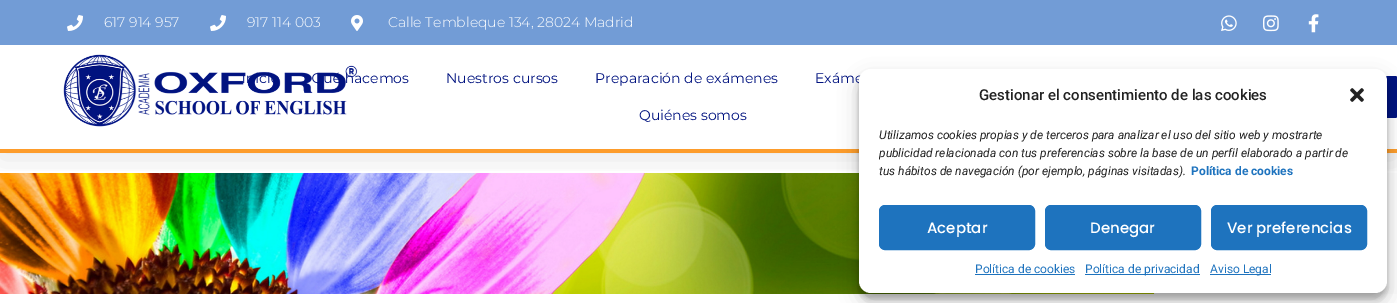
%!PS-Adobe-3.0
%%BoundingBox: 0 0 1397 303
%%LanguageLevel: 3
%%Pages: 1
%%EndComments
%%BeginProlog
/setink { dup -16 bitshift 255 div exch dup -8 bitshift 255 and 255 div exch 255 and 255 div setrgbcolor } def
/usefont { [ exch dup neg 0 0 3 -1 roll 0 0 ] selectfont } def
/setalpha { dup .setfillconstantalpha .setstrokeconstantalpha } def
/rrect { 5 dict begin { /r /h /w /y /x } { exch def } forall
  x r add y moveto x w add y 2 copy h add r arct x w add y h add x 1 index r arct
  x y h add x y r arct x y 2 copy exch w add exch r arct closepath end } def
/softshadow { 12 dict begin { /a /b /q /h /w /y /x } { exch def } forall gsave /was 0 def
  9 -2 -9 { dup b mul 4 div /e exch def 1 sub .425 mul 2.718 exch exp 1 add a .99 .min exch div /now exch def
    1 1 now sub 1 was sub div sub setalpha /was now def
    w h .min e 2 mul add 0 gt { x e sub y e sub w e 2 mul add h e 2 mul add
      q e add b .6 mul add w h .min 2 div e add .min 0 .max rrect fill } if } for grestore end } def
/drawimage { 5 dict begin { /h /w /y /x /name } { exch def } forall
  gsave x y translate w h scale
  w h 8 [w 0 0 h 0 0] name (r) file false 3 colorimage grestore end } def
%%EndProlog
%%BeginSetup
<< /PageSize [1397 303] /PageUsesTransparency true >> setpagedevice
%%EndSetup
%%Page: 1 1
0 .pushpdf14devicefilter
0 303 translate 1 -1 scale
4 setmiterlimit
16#FFFFFF setink
0 0 1397 303 rectfill
16#FCFCFC setink
1154 173 243 121 rectfill
(img8.raw) 0 173 1155 121 drawimage
gsave
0 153 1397 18 rectclip
16#000000 setink
0 5 1397 153 0 15 0.1 softshadow
grestore
16#729CD6 setink
0 0 1397 45 rectfill
(img1.raw) 67 15 16 16 drawimage
/Montserrat-Light 14 usefont
16#FFFFFF setink
104 27 moveto (617 914 957) show
(img1.raw) 210 15 16 16 drawimage
247 27 moveto (917 114 003) show
(img2.raw) 351 15 12 16 drawimage
388 27 moveto (Calle Tembleque 134, 28024 Madrid) show
(img3.raw) 1221 15 16 16 drawimage
(img4.raw) 1263 15 16 17 drawimage
(img5.raw) 1308 14 11 19 drawimage
16#FD9C2B setink
0 149 1397 4 rectfill
/Montserrat-Regular 14 usefont
16#00127F setink
323 83 moveto (u) show
354 83 moveto (acemos) show
(img6.raw) 63 54 295 73 drawimage
[
    [(Nuestros cursos) 446 83]
    [(Preparación de exámenes) 595 83]
    [(Exáme) 815 83]
    [(Quiénes somos) 639 120]
] { aload pop moveto show } forall
1265 76 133 42 3 rrect fill
16#000000 setink
859 75 528 224 12 3 0.23 softshadow
859 79 528 224 12 10 0.19 softshadow
16#FFFFFF setink
859 69 528 224 12 rrect fill
/Roboto-Medium 15 usefont
16#222222 setink
979 100 moveto (Gestionar el consentimiento de las cookies) show
(img7.raw) 1350 88 14 14 drawimage
/Roboto-Italic 12 usefont
879 139 moveto (Utilizamos cookies propias y de terceros para analizar el uso del sitio web y mostrarte) show
gsave
879 126 488 59 rectclip
879 157 moveto (publicidad relacionada con tus preferencias sobre la base de un perfil elaborado a partir de) show
grestore
879 175 moveto (tus hábitos de navegación \(por ejemplo, páginas visitadas\).) show
/Roboto-Bold 12 usefont
16#1E73BE setink
1191 175 moveto (Política de cookies) show
879.5 205.5 155 44 5.5 rrect gsave fill grestore
stroke
/Poppins-Medium 15 usefont
16#FFFFFF setink
927 233 moveto (Aceptar) show
16#1E73BE setink
1045.5 205.5 155 44 5.5 rrect gsave fill grestore
stroke
16#FFFFFF setink
1090 233 moveto (Denegar) show
16#1E73BE setink
1211.5 205.5 155 44 5.5 rrect gsave fill grestore
stroke
16#FFFFFF setink
1227 233 moveto (Ver preferencias) show
/Roboto-Regular 12 usefont
16#1E73BE setink
975 273 moveto (Política de cookies) show
975 274 100 1 rectfill
1085 274 115 1 rectfill
1085 273 moveto (Política de privacidad) show
1210 274 61 1 rectfill
1210 273 moveto (Aviso Legal) show
.poppdf14devicefilter showpage
%%EOF
